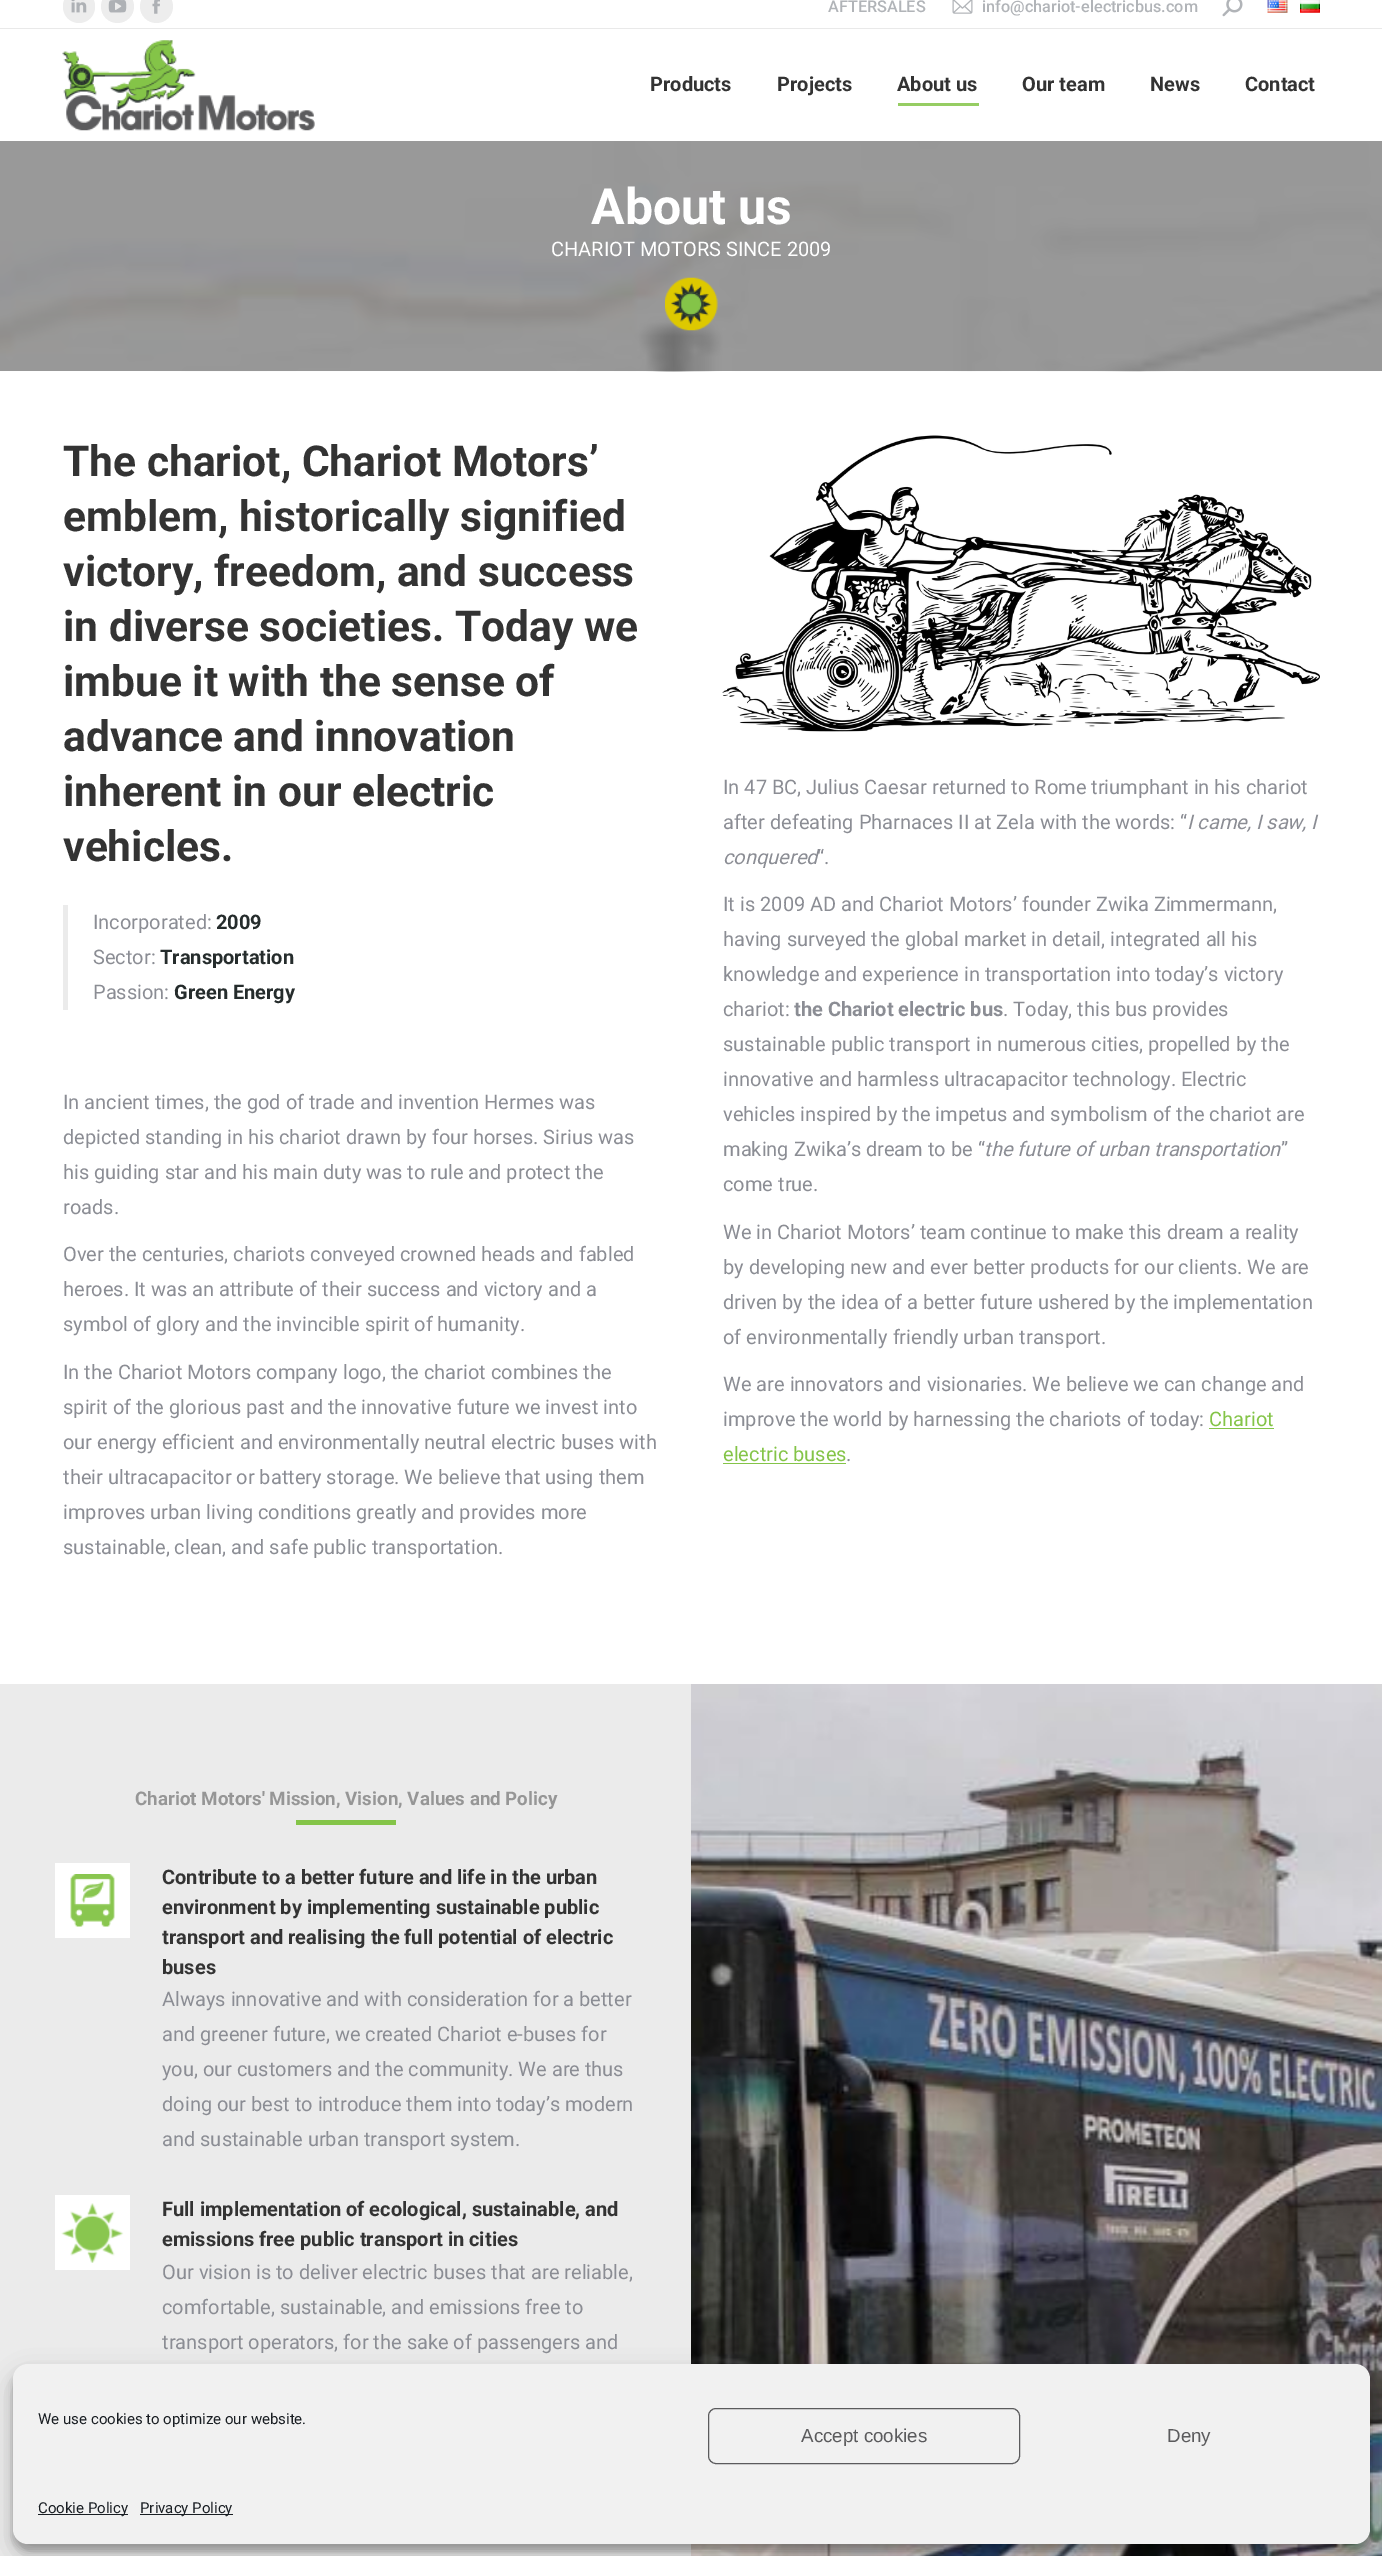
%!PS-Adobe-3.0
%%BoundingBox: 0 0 1382 2556
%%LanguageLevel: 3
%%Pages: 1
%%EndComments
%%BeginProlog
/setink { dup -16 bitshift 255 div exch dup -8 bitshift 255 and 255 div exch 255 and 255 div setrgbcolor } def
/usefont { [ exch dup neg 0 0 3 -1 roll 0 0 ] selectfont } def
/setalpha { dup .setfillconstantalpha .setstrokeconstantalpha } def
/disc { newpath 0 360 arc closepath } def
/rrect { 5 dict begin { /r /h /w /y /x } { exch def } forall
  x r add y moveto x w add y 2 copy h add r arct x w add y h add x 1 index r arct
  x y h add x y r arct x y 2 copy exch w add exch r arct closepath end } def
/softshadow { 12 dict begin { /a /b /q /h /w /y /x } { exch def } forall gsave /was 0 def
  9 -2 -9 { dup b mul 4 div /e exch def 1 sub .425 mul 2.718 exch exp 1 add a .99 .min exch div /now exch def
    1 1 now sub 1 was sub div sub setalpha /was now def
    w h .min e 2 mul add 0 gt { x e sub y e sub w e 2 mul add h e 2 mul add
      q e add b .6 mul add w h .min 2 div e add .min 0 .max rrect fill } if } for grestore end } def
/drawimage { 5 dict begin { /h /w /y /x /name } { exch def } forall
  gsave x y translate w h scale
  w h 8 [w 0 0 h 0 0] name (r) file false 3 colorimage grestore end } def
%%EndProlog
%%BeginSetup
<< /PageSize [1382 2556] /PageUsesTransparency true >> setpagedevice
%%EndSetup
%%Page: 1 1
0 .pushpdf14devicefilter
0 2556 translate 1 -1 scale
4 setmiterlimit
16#FFFFFF setink
0 0 1382 2556 rectfill
16#EDEDED setink
63 -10 32 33 16 rrect fill
(img1.raw) 71 0 16 13 drawimage
117.5 6.5 16.5 disc fill
(img2.raw) 108 0 19 13 drawimage
156.5 6.5 16.5 disc fill
(img3.raw) 152 0 8 14 drawimage
/Roboto-Medium 16.25 usefont
16#B1B4B8 setink
828 12 moveto (AFTERSALES) show
(img4.raw) 952 0 21 14 drawimage
982 12 moveto (info@chariot-electricbus.com) show
(img5.raw) 1222 0 21 17 drawimage
(img6.raw) 1267 0 21 13 drawimage
(img7.raw) 1300 0 20 13 drawimage
16#E9E9E9 setink
0 28 1382 1 rectfill
(img8.raw) 62 40 253 91 drawimage
/Roboto-Bold 20 usefont
16#333333 setink
[
    [(Products) 650 91]
    [(Projects) 777 91]
    [(About us) 897 91]
] { aload pop moveto show } forall
16#96CD63 setink
898 103 81 3 rectfill
16#333333 setink
[
    [(Our team) 1022 91]
    [(News) 1150 91]
    [(Contact) 1245 91]
] { aload pop moveto show } forall
(img9.raw) 0 141 1382 231 drawimage
/Roboto-Bold 50 usefont
16#FFFFFF setink
591 224 moveto (About us) show
/Roboto-Regular 20 usefont
551 256 moveto (CHARIOT MOTORS SINCE 2009) show
(img10.raw) 665 277 53 54 drawimage
/Roboto-Bold 42.5 usefont
16#333333 setink
[
    [(The chariot, Chariot Motors’) 63 476]
    [(emblem, historically signified) 63 531]
    [(victory, freedom, and success) 63 586]
    [(in diverse societies. Today we) 63 641]
    [(imbue it with the sense of) 63 696]
    [(advance and innovation) 63 751]
    [(inherent in our electric) 63 806]
    [(vehicles.) 63 861]
] { aload pop moveto show } forall
16#EBEBEB setink
63 905 5 105 rectfill
/Roboto-Regular 20 usefont
16#8B8D94 setink
93 929 moveto (Incorporated:) show
/Roboto-Bold 20 usefont
16#252C2C setink
216 929 moveto (2009) show
/Roboto-Regular 20 usefont
16#8B8D94 setink
93 964 moveto (Sector:) show
/Roboto-Bold 20 usefont
16#252C2C setink
160 964 moveto (Transportation) show
/Roboto-Regular 20 usefont
16#8B8D94 setink
93 999 moveto (Passion:) show
/Roboto-Bold 20 usefont
16#252C2C setink
174 999 moveto (Green Energy) show
/Roboto-Regular 20 usefont
16#8B8D94 setink
[
    [(In ancient times, the god of trade and invention Hermes was) 63 1109]
    [(depicted standing in his chariot drawn by four horses. Sirius was) 63 1144]
    [(his guiding star and his main duty was to rule and protect the) 63 1179]
    [(roads.) 63 1214]
    [(Over the centuries, chariots conveyed crowned heads and fabled) 63 1261]
    [(heroes. It was an attribute of their success and victory and a) 63 1296]
    [(symbol of glory and the invincible spirit of humanity.) 63 1331]
    [(In the Chariot Motors company logo, the chariot combines the) 63 1379]
    [(spirit of the glorious past and the innovative future we invest into) 63 1414]
    [(our energy efficient and environmentally neutral electric buses with) 63 1449]
    [(their ultracapacitor or battery storage. We believe that using them) 63 1484]
    [(improves urban living conditions greatly and provides more) 63 1519]
    [(sustainable, clean, and safe public transportation.) 63 1554]
] { aload pop moveto show } forall
(img11.raw) 722 435 598 297 drawimage
723 794 moveto (In 47 BC, Julius Caesar returned to Rome triumphant in his chariot) show
723 829 moveto (after defeating Pharnaces II at Zela with the words: “) show
/Roboto-Italic 20 usefont
1187 829 moveto (I came, I saw, I) show
723 864 moveto (conquered) show
/Roboto-Regular 20 usefont
[
    [(“.) 817 864]
    [(It is 2009 AD and Chariot Motors’ founder Zwika Zimmermann,) 723 911]
    [(having surveyed the global market in detail, integrated all his) 723 946]
    [(knowledge and experience in transportation into today’s victory) 723 981]
    [(chariot:) 723 1016]
] { aload pop moveto show } forall
/Roboto-Bold 20 usefont
794 1016 moveto (the Chariot electric bus) show
/Roboto-Regular 20 usefont
[
    [(. Today, this bus provides) 1003 1016]
    [(sustainable public transport in numerous cities, propelled by the) 723 1051]
    [(innovative and harmless ultracapacitor technology. Electric) 723 1086]
    [(vehicles inspired by the impetus and symbolism of the chariot are) 723 1121]
    [(making Zwika’s dream to be “) 723 1156]
] { aload pop moveto show } forall
/Roboto-Italic 20 usefont
984 1156 moveto (the future of urban transportation) show
/Roboto-Regular 20 usefont
[
    [(”) 1281 1156]
    [(come true.) 723 1191]
    [(We in Chariot Motors’ team continue to make this dream a reality) 723 1239]
    [(by developing new and ever better products for our clients. We are) 723 1274]
    [(driven by the idea of a better future ushered by the implementation) 723 1309]
    [(of environmentally friendly urban transport.) 723 1344]
    [(We are innovators and visionaries. We believe we can change and) 723 1391]
    [(improve the world by harnessing the chariots of today:) 723 1426]
] { aload pop moveto show } forall
16#84C448 setink
1209 1426 moveto (Chariot) show
1209 1428 65 1 rectfill
723 1461 moveto (electric buses) show
723 1463 123 1 rectfill
16#8B8D94 setink
846 1461 moveto (.) show
16#EBEBEB setink
0 1684 691 872 rectfill
/Roboto-Bold 18.75 usefont
16#969696 setink
135 1805 moveto (Chariot Motors' Mission, Vision, Values and Policy) show
16#84C448 setink
296 1820 100 5 rectfill
16#FFFFFF setink
55 1863 75 75 rectfill
(img12.raw) 70 1874 45 53 drawimage
/Roboto-Bold 20 usefont
16#333333 setink
[
    [(Contribute to a better future and life in the urban) 162 1884]
    [(environment by implementing sustainable public) 162 1914]
    [(transport and realising the full potential of electric) 162 1944]
    [(buses) 162 1974]
] { aload pop moveto show } forall
/Roboto-Regular 20 usefont
16#8B8D94 setink
[
    [(Always innovative and with consideration for a better) 162 2006]
    [(and greener future, we created Chariot e-buses for) 162 2041]
    [(you, our customers and the community. We are thus) 162 2076]
    [(doing our best to introduce them into today’s modern) 162 2111]
    [(and sustainable urban transport system.) 162 2146]
] { aload pop moveto show } forall
16#FFFFFF setink
55 2195 75 75 rectfill
(img13.raw) 61 2203 63 60 drawimage
/Roboto-Bold 20 usefont
16#333333 setink
162 2216 moveto (Full implementation of ecological, sustainable, and) show
162 2246 moveto (emissions free public transport in cities) show
/Roboto-Regular 20 usefont
16#8B8D94 setink
[
    [(Our vision is to deliver electric buses that are reliable,) 162 2279]
    [(comfortable, sustainable, and emissions free to) 162 2314]
    [(transport operators, for the sake of passengers and) 162 2349]
] { aload pop moveto show } forall
(img14.raw) 691 1684 691 872 drawimage
16#000000 setink
13 2371 1357 180 15 4 0.23 softshadow
13 2376 1357 180 15 12.5 0.19 softshadow
16#F1F1F1 setink
13 2364 1357 180 15 rrect fill
/Roboto-Regular 15 usefont
16#191E23 setink
38 2424 moveto (We use cookies to optimize our website.) show
16#5B5B5D setink
708.5 2408.5 311 55 7.5 rrect stroke
/LiberationSans-Regular 18.75 usefont
801 2442 moveto (Accept cookies) show
1167 2442 moveto (Deny) show
16#191E23 setink
38 2514 90 1 rectfill
/Roboto-Regular 15 usefont
38 2513 moveto (Cookie Policy) show
140 2514 93 1 rectfill
140 2513 moveto (Privacy Policy) show
.poppdf14devicefilter showpage
%%EOF
